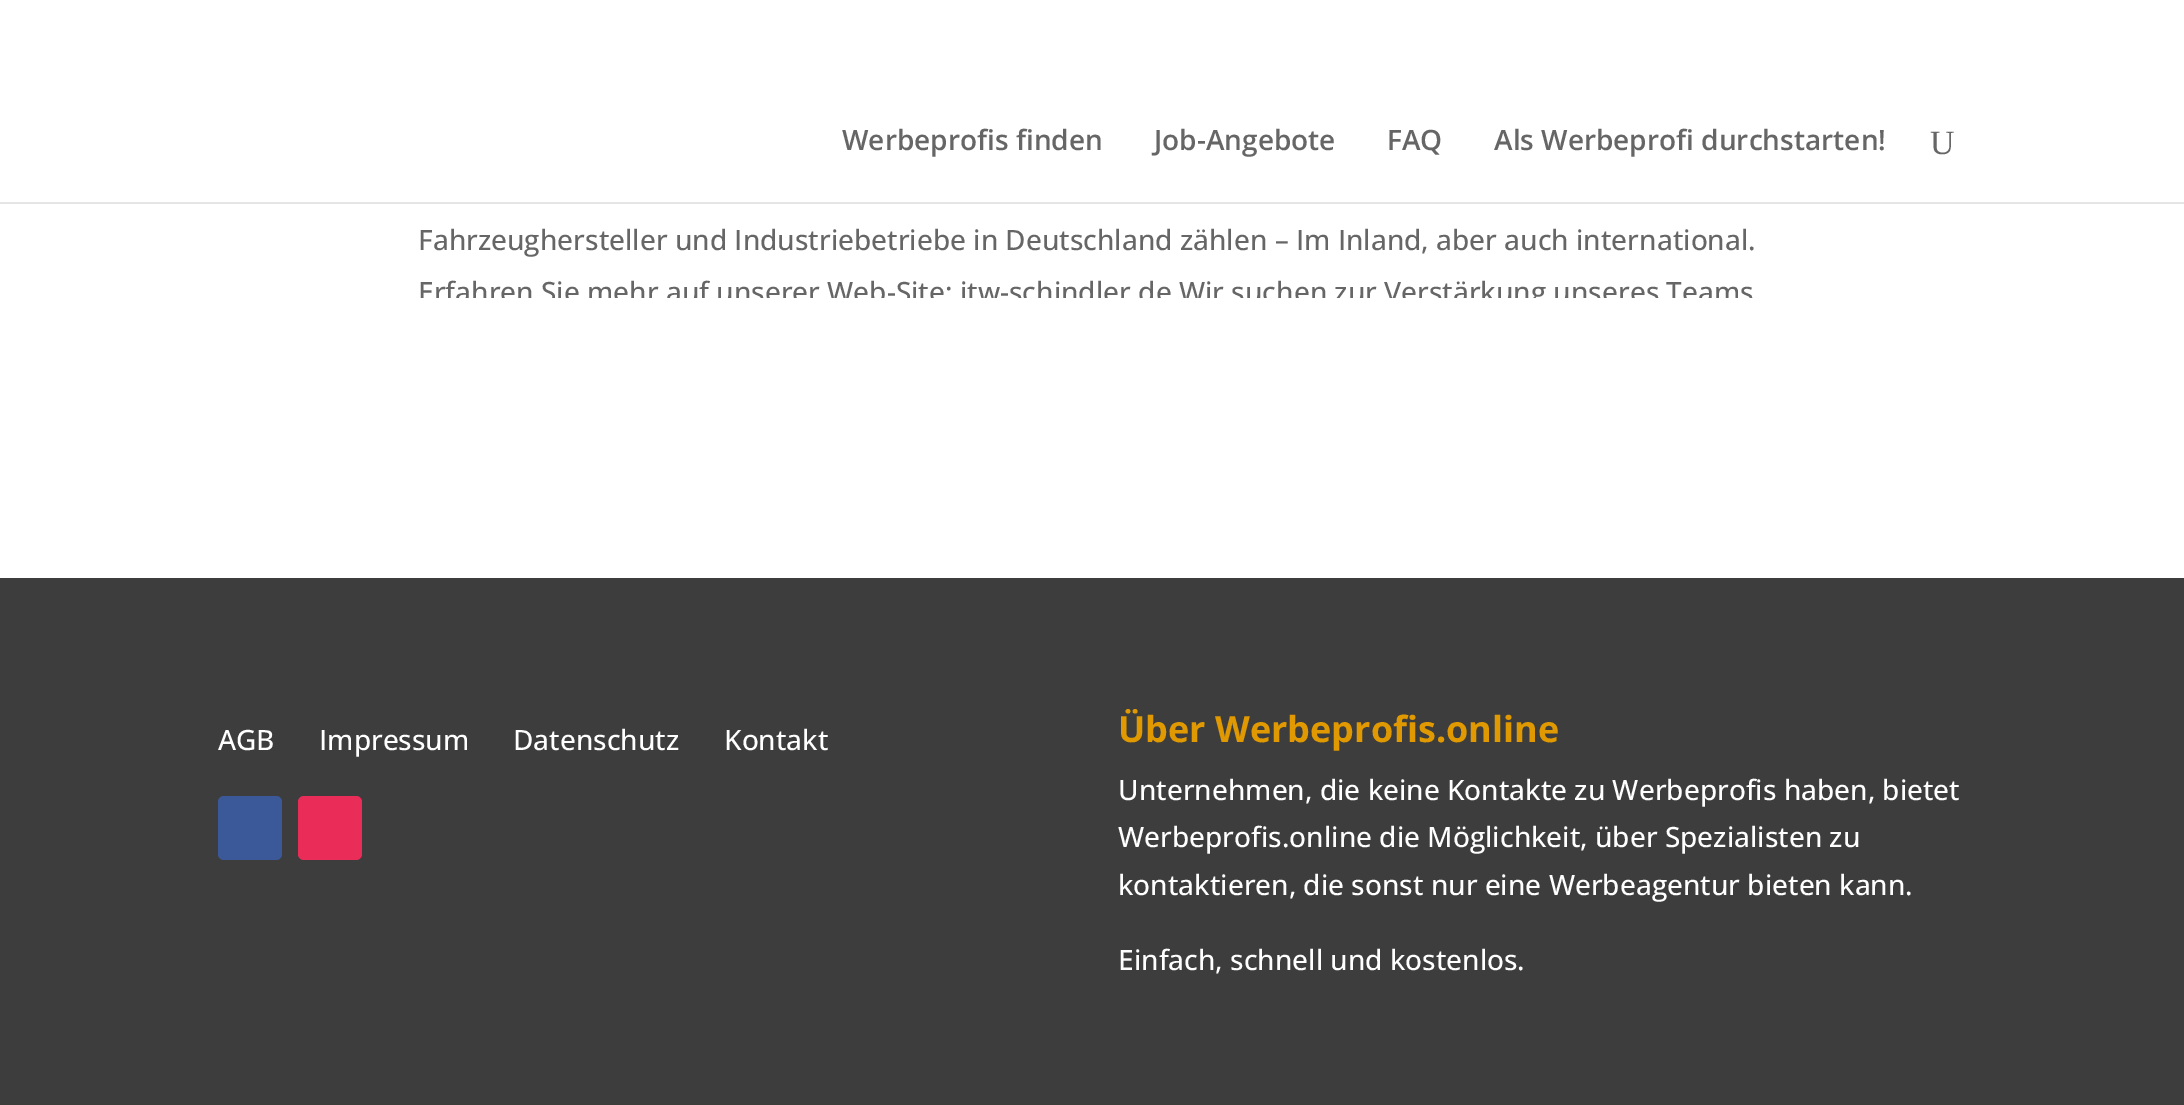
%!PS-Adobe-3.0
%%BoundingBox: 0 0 2184 1105
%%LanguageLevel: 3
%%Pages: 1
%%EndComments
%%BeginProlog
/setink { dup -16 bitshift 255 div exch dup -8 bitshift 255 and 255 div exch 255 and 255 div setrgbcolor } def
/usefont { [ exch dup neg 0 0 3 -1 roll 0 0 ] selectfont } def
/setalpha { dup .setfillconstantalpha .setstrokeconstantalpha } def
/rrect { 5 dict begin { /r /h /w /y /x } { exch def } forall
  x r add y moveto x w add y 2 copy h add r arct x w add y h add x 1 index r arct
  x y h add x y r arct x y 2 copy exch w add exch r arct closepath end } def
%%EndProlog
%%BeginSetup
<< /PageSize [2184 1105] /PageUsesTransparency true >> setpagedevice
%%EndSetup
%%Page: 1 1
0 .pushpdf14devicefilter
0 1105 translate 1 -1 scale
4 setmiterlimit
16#FFFFFF setink
0 0 2184 1105 rectfill
0.1 setalpha
16#000000 setink
0 202 2184 2 rectfill
/OpenSans-SemiBold 28 usefont
1 setalpha
16#666666 setink
[
    [(Werbeprofis finden) 842 150]
    [(Job-Angebote) 1154 150]
    [(FAQ) 1387 150]
    [(Als Werbeprofi durchstarten!) 1494 150]
] { aload pop moveto show } forall
/LiberationSerif-Regular 34 usefont
1930 154 moveto (U) show
/OpenSans-Medium 28 usefont
418 250 moveto (Fahrzeughersteller und Industriebetriebe in Deutschland zählen – Im Inland, aber auch international.) show
gsave
418 58 1376 240 rectclip
418 302 moveto (Erfahren Sie mehr auf unserer Web-Site: itw-schindler.de Wir suchen zur Verstärkung unseres Teams) show
grestore
16#3D3D3D setink
0 578 2184 527 rectfill
16#FFFFFF setink
[
    [(AGB) 218 750]
    [(Impressum) 319 750]
    [(Datenschutz) 513 750]
    [(Kontakt) 724 750]
] { aload pop moveto show } forall
16#3B5998 setink
218 796 64 64 6 rrect fill
16#EA2C59 setink
298 796 64 64 6 rrect fill
/OpenSans-Bold 36 usefont
16#E09900 setink
1118 742 moveto (Über Werbeprofis.online) show
/OpenSans-Medium 28 usefont
16#FFFFFF setink
[
    [(Unternehmen, die keine Kontakte zu Werbeprofis haben, bietet) 1118 800]
    [(Werbeprofis.online die Möglichkeit, über Spezialisten zu) 1118 847]
    [(kontaktieren, die sonst nur eine Werbeagentur bieten kann.) 1118 895]
    [(Einfach, schnell und kostenlos.) 1118 970]
] { aload pop moveto show } forall
.poppdf14devicefilter showpage
%%EOF
